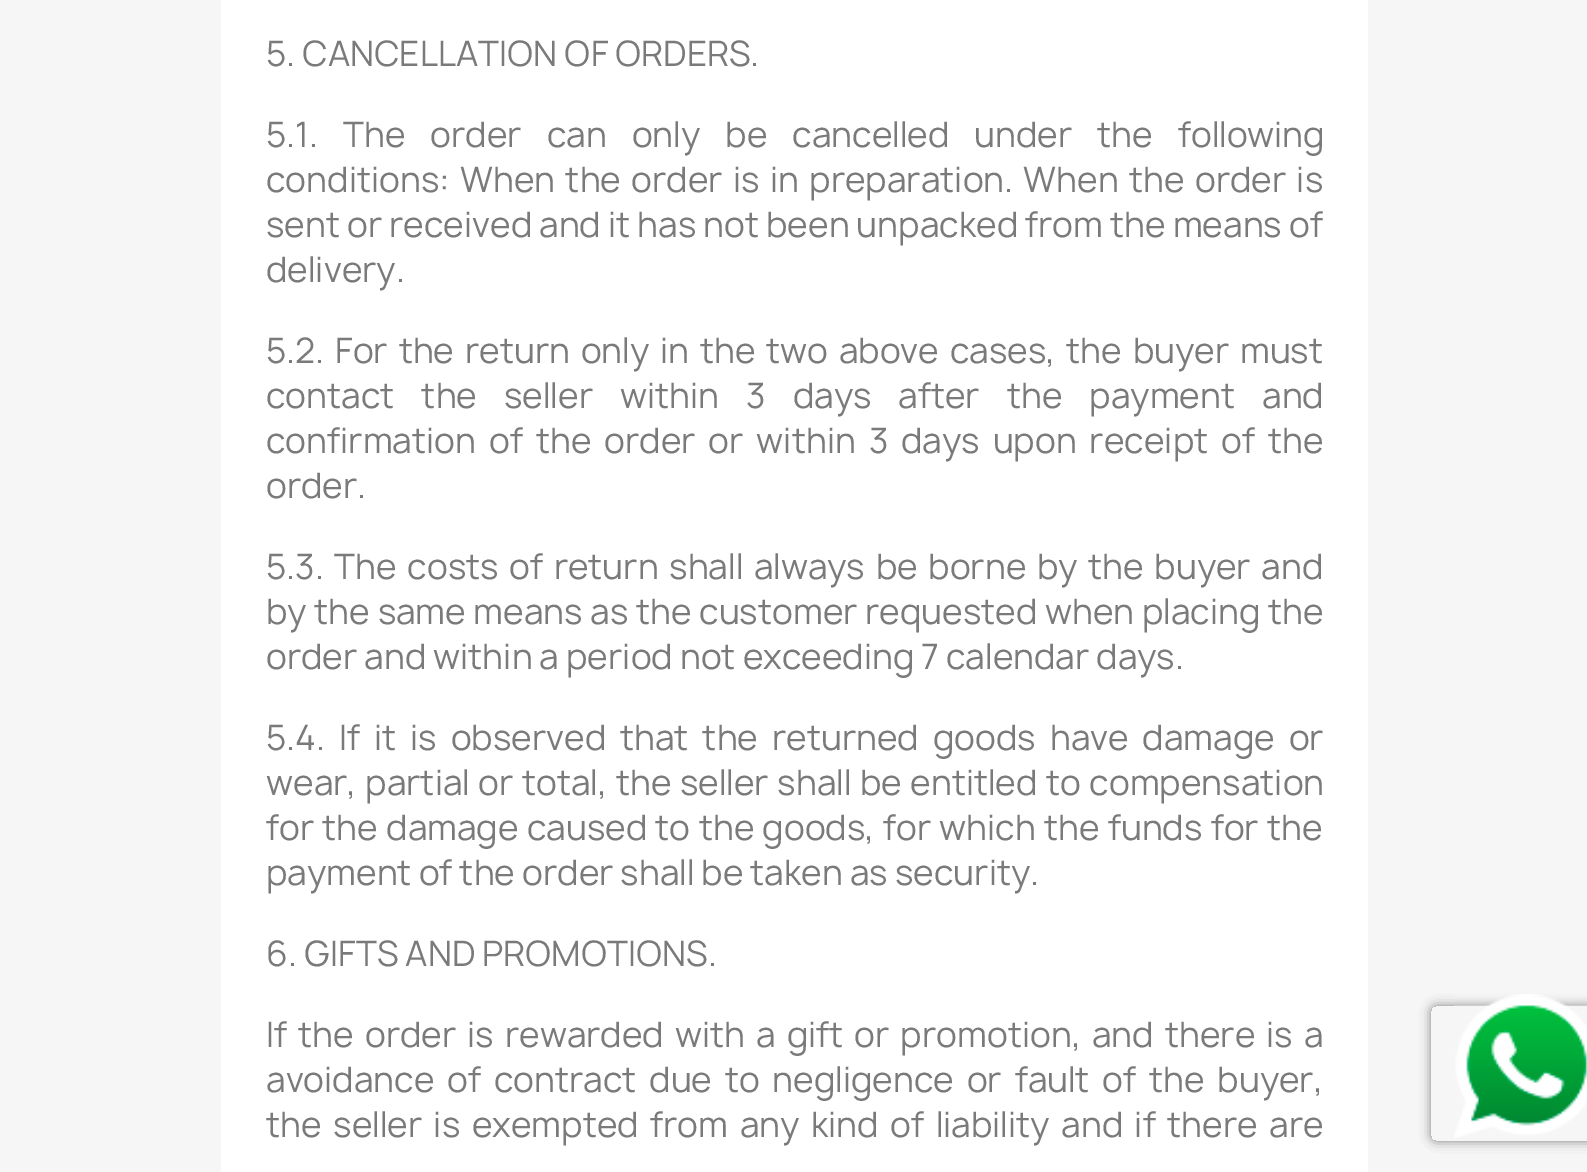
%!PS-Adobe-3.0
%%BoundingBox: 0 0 1587 1172
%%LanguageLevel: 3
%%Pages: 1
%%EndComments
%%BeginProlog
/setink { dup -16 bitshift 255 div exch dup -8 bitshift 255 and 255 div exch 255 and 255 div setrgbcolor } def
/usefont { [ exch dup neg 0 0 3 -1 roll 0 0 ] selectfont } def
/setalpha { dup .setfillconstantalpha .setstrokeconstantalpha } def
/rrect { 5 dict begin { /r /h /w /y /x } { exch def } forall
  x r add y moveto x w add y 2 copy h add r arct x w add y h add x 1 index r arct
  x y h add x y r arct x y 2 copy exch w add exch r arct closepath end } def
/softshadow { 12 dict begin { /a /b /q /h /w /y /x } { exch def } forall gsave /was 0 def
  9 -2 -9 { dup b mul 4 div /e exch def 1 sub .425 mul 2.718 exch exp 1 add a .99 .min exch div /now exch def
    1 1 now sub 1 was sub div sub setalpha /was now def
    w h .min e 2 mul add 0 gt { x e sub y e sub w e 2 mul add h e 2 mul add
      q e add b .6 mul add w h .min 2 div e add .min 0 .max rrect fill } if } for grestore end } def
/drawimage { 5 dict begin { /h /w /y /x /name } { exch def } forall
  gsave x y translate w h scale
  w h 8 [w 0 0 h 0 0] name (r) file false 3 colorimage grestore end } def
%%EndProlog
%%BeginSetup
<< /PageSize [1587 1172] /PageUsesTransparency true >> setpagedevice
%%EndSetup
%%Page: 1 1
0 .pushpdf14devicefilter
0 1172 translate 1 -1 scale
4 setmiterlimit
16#F6F6F6 setink
0 0 1587 1172 rectfill
16#FFFFFF setink
221 0 1147 1172 rectfill
/Manrope-Regular 33.75 usefont
16#7A7A7A setink
266 66 moveto (5. CANCELLATION OF ORDERS.) show
266 147 moveto 18 0 32 (5.1. The order can only be cancelled under the following) widthshow
266 192 moveto 3.25 0 32 (conditions: When the order is in preparation. When the order is) widthshow
266 237 moveto (sent or received and it has not been unpacked from the means of) show
266 282 moveto (delivery.) show
266 363 moveto 3.75 0 32 (5.2. For the return only in the two above cases, the buyer must) widthshow
266 408 moveto 20 0 32 (contact the seller within 3 days after the payment and) widthshow
266 453 moveto 5.9 0 32 (confirmation of the order or within 3 days upon receipt of the) widthshow
266 498 moveto (order.) show
266 579 moveto 3.6 0 32 (5.3. The costs of return shall always be borne by the buyer and) widthshow
266 624 moveto 0.6 0 32 (by the same means as the customer requested when placing the) widthshow
266 669 moveto (order and within a period not exceeding 7 calendar days.) show
266 750 moveto 6.9 0 32 (5.4. If it is observed that the returned goods have damage or) widthshow
266 795 moveto 1.5 0 32 (wear, partial or total, the seller shall be entitled to compensation) widthshow
266 840 moveto 1.25 0 32 (for the damage caused to the goods, for which the funds for the) widthshow
266 885 moveto (payment of the order shall be taken as security.) show
266 966 moveto (6. GIFTS AND PROMOTIONS.) show
266 1047 moveto 4 0 32 (If the order is rewarded with a gift or promotion, and there is a) widthshow
266 1092 moveto 5.75 0 32 (avoidance of contract due to negligence or fault of the buyer,) widthshow
266 1137 moveto 4.5 0 32 (the seller is exempted from any kind of liability and if there are) widthshow
gsave
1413 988 moveto 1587 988 lineto 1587 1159 lineto 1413 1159 lineto closepath 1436 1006 moveto 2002 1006 lineto 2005 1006 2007 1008 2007 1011 curveto 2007 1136 lineto 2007 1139 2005 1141 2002 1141 curveto 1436 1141 lineto 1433 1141 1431 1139 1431 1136 curveto 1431 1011 lineto 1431 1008 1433 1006 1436 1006 curveto closepath eoclip newpath
16#808080 setink
1431 1006 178 135 5 5.5 1 softshadow
grestore
(img1.raw) 1454 994 133 144 drawimage
.poppdf14devicefilter showpage
%%EOF
